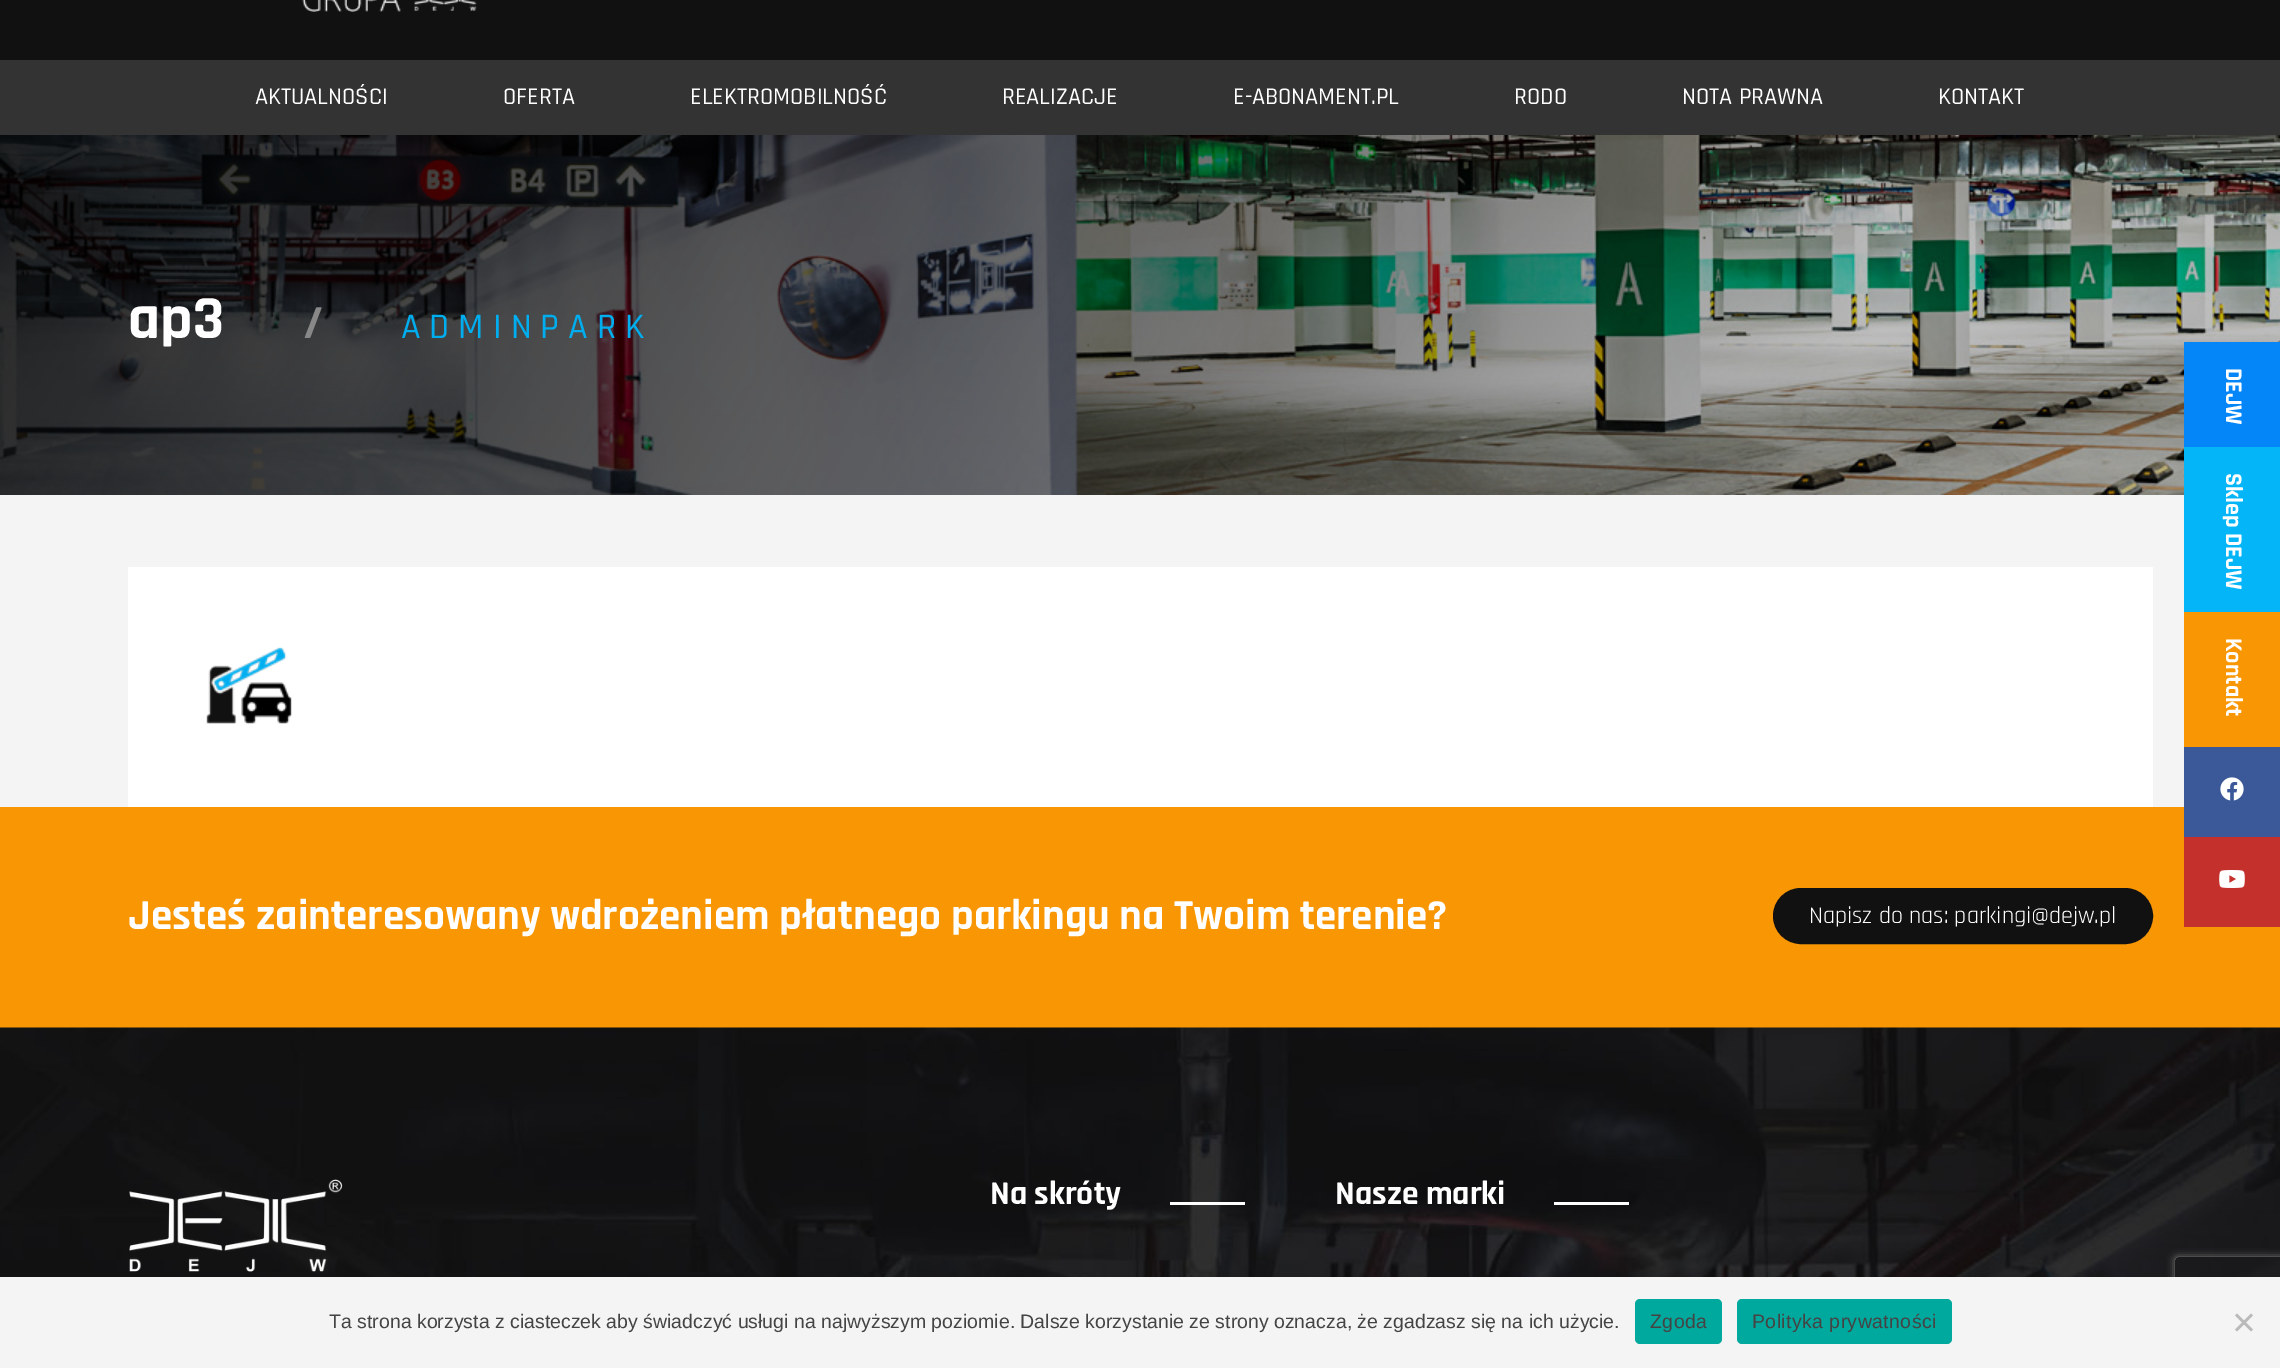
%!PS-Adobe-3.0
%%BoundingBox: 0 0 2280 1368
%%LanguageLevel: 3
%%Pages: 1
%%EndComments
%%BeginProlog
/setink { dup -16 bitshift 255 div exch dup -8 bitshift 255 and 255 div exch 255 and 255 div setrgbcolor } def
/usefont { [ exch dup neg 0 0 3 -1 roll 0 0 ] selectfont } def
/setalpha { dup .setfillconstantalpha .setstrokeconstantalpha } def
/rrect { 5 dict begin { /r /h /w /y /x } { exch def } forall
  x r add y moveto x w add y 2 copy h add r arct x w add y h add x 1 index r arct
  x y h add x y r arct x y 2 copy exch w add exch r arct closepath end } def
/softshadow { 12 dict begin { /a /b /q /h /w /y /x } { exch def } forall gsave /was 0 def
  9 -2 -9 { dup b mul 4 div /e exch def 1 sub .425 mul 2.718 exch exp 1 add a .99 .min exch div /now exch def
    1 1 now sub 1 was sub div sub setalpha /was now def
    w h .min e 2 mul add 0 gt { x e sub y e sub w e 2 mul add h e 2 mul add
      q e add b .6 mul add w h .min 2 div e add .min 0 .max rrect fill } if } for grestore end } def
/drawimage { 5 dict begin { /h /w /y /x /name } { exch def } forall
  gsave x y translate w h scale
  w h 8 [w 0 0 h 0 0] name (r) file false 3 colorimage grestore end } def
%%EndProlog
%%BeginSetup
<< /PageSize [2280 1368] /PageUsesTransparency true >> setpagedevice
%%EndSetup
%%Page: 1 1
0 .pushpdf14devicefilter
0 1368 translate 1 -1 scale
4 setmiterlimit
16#111111 setink
0 0 2280 1368 rectfill
16#333333 setink
0 60 2280 75 rectfill
/Rajdhani-Medium 24 usefont
16#FFFFFF setink
[
    [(AKTUALNOŚCI) 255 104]
    [(OFERTA) 503 104]
    [(ELEKTROMOBILNOŚĆ) 690 104]
    [(REALIZACJE) 1002 104]
    [(E-ABONAMENT.PL) 1233 104]
    [(RODO) 1514 104]
    [(NOTA PRAWNA) 1682 104]
    [(KONTAKT) 1938 104]
] { aload pop moveto show } forall
(img1.raw) 0 135 2280 360 drawimage
/Rajdhani-Bold 62 usefont
128 338 moveto (ap3) show
/Rajdhani-Bold 48 usefont
16#888888 setink
303 338 moveto (/) show
/Rajdhani-Medium 36 usefont
16#00AEEF setink
401 338 moveto 9 0 (ADMINPARK) ashow
16#F4F4F4 setink
0 495 2184 312 rectfill
16#FFFFFF setink
128 567 2025 240 rectfill
(img2.raw) 206 647 86 77 drawimage
16#F89604 setink
0 807 2280 221 rectfill
/Rajdhani-Bold 43.2 usefont
16#FFFFFF setink
128 929 moveto (Jesteś zainteresowany wdrożeniem płatnego parkingu na Twoim terenie?) show
16#111111 setink
1774.5 889.5 377 53 26.5 rrect gsave fill grestore
3 setlinewidth
stroke
/Rajdhani-Regular 24 usefont
16#FFFFFF setink
1809 923 moveto (Napisz do nas: parkingi@dejw.pl) show
(img3.raw) 302 0 175 12 drawimage
16#0486F8 setink
2184 342 96 105 rectfill
/Rajdhani-Bold 24 usefont
16#FFFFFF setink
gsave 2226 368 translate 90 rotate 0 0 moveto (DEJW) show grestore
16#04B5F8 setink
2184 447 96 165 rectfill
16#FFFFFF setink
gsave 2226 473 translate 90 rotate 0 0 moveto (Sklep DEJW) show grestore
16#F89604 setink
2184 612 96 135 rectfill
16#FFFFFF setink
gsave 2226 638 translate 90 rotate 0 0 moveto (Kontakt) show grestore
16#3B5998 setink
2184 747 96 90 rectfill
(img4.raw) 2220 777 24 24 drawimage
16#C4302B setink
2184 837 96 90 rectfill
(img5.raw) 2219 870 26 18 drawimage
(img6.raw) 0 1027 2280 250 drawimage
(img7.raw) 129 1179 214 93 drawimage
/Rajdhani-Bold 33.5 usefont
16#FFFFFF setink
990 1204 moveto (Na skróty) show
1170 1202 75 3 rectfill
1335 1204 moveto (Nasze marki) show
1554 1202 75 3 rectfill
gsave
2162 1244 moveto 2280 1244 lineto 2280 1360 lineto 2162 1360 lineto closepath 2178 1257 moveto 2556 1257 lineto 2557.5 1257 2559 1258.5 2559 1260 curveto 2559 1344 lineto 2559 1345.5 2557.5 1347 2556 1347 curveto 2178 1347 lineto 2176.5 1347 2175 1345.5 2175 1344 curveto 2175 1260 lineto 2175 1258.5 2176.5 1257 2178 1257 curveto closepath eoclip newpath
16#808080 setink
2175 1257 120 90 3 4 1 softshadow
grestore
16#F4F4F4 setink
0 1277 2280 91 rectfill
/LiberationSans-Regular 19.5 usefont
16#444444 setink
329 1328 moveto (Ta strona korzysta z ciasteczek aby świadczyć usługi na najwyższym poziomie. Dalsze korzystanie ze strony oznacza, że zgadzasz się na ich użycie.) show
16#00A99D setink
1635 1299 87 45 5 rrect fill
16#444444 setink
1650 1328 moveto 0.4 0 (Zgoda) ashow
16#00A99D setink
1737 1299 215 45 5 rrect fill
16#444444 setink
1752 1328 moveto 0.4 0 (Polityka prywatności) ashow
16#BABABA setink
2251 1313.5 moveto 2253 1315.5 lineto 2237 1331.5 lineto 2235 1329.5 lineto closepath fill
2235 1315.5 moveto 2237 1313.5 lineto 2253 1329.5 lineto 2251 1331.5 lineto closepath fill
.poppdf14devicefilter showpage
%%EOF
